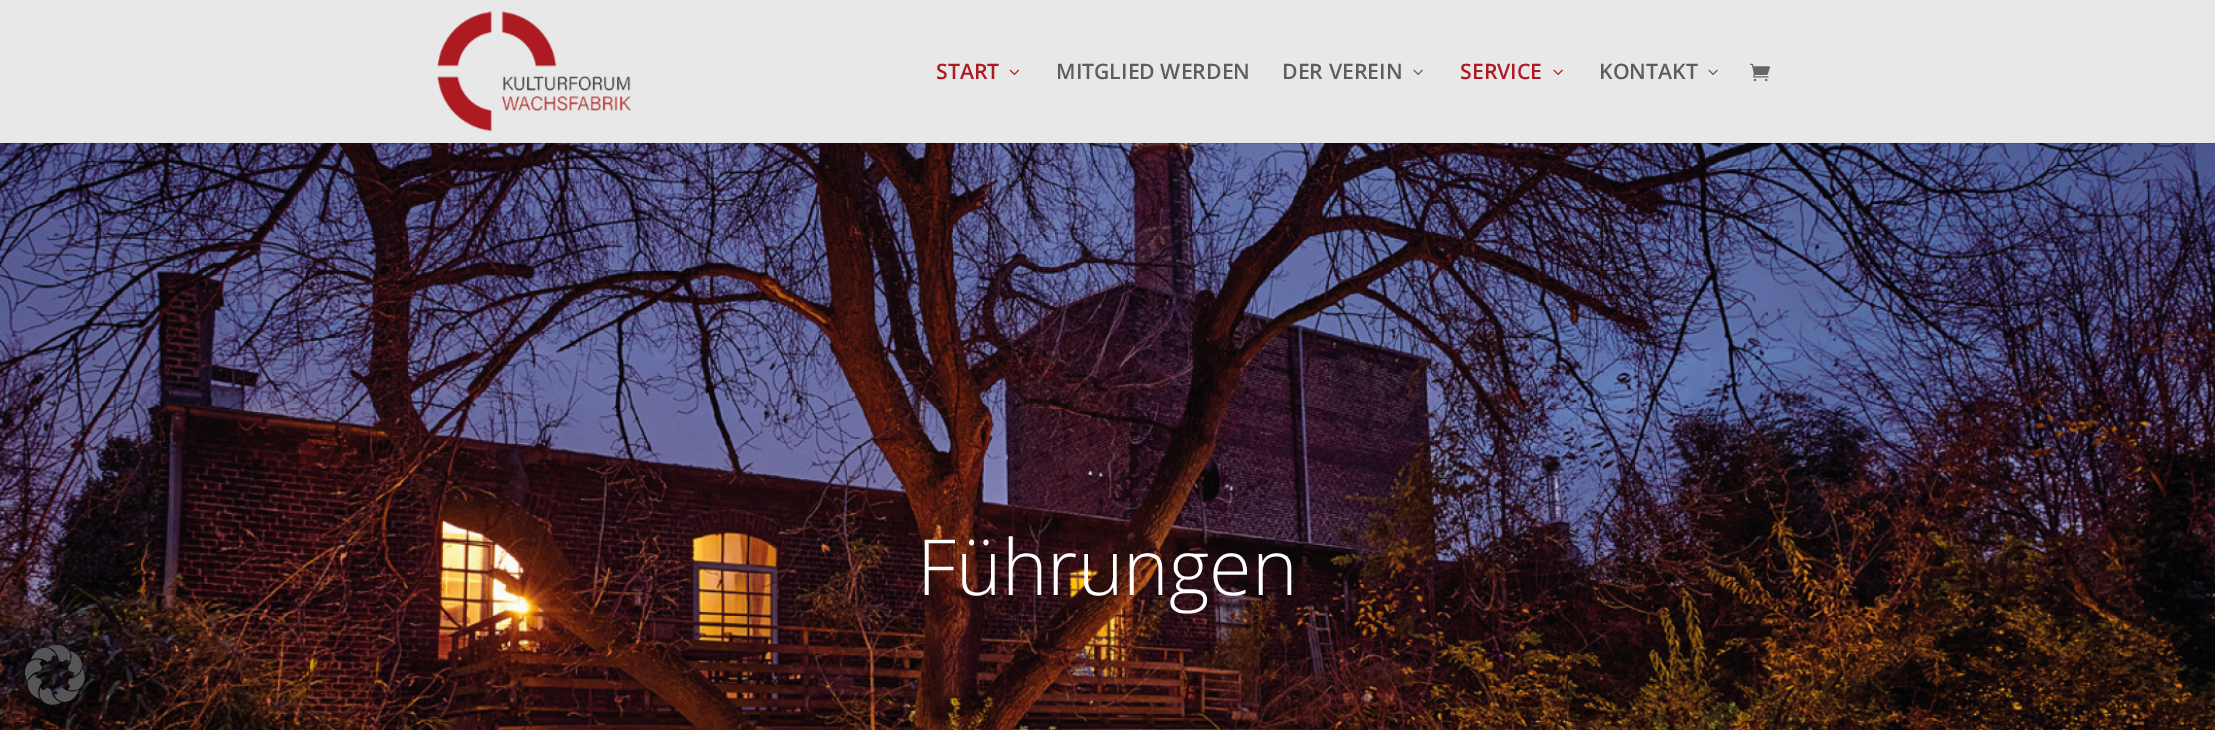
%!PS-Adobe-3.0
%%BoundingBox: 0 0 2215 730
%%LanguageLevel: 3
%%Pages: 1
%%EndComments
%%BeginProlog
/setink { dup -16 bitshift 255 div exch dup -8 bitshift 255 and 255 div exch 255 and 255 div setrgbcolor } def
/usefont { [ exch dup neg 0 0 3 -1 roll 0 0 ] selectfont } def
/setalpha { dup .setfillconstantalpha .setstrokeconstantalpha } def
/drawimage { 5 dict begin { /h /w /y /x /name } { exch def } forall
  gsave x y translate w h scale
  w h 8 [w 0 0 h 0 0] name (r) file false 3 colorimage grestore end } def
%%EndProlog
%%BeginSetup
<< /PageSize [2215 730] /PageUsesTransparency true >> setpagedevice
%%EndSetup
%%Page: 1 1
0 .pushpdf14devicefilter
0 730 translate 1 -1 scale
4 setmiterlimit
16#FFFFFF setink
0 0 2215 730 rectfill
(img6.raw) 0 143 2215 587 drawimage
0.1 setalpha
16#000000 setink
0 143 2215 1 rectfill
1 setalpha
16#E8E8E8 setink
0 0 2215 143 rectfill
(img1.raw) 437 11 195 121 drawimage
/OpenSans-SemiBold 21.25 usefont
16#AD1A22 setink
936 79 moveto (START) show
(img2.raw) 1009 69 10 6 drawimage
16#5D5D5D setink
1056 79 moveto (MITGLIED WERDEN) show
1282 79 moveto (DER VEREIN) show
(img3.raw) 1413 69 10 6 drawimage
16#AD1A22 setink
1460 79 moveto (SERVICE) show
(img4.raw) 1553 69 10 6 drawimage
16#5D5D5D setink
1599 79 moveto (KONTAKT) show
(img3.raw) 1708 69 10 6 drawimage
(img5.raw) 1750 63 20 19 drawimage
/OpenSans-Light 77.5 usefont
16#FFFFFF setink
917 595 moveto (Führungen) show
(img7.raw) 25 645 60 60 drawimage
.poppdf14devicefilter showpage
%%EOF
